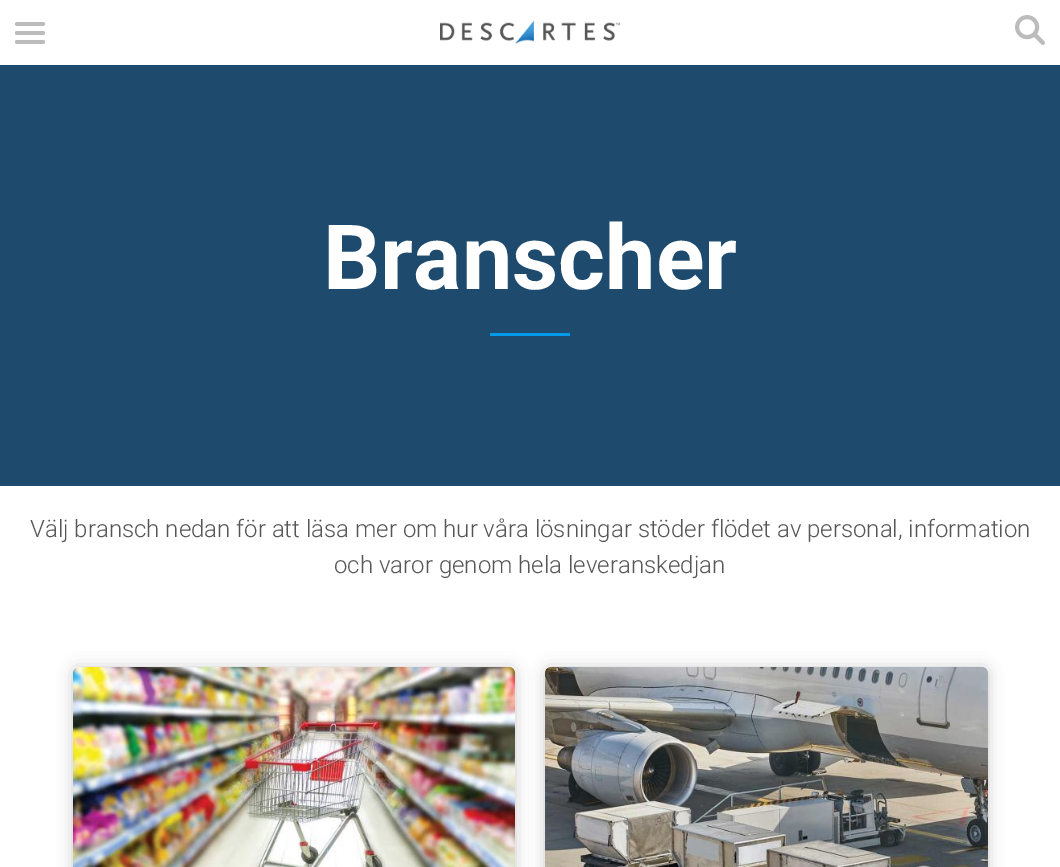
%!PS-Adobe-3.0
%%BoundingBox: 0 0 1060 867
%%LanguageLevel: 3
%%Pages: 1
%%EndComments
%%BeginProlog
/setink { dup -16 bitshift 255 div exch dup -8 bitshift 255 and 255 div exch 255 and 255 div setrgbcolor } def
/usefont { [ exch dup neg 0 0 3 -1 roll 0 0 ] selectfont } def
/setalpha { dup .setfillconstantalpha .setstrokeconstantalpha } def
/rrect { 5 dict begin { /r /h /w /y /x } { exch def } forall
  x r add y moveto x w add y 2 copy h add r arct x w add y h add x 1 index r arct
  x y h add x y r arct x y 2 copy exch w add exch r arct closepath end } def
/softshadow { 12 dict begin { /a /b /q /h /w /y /x } { exch def } forall gsave /was 0 def
  9 -2 -9 { dup b mul 4 div /e exch def 1 sub .425 mul 2.718 exch exp 1 add a .99 .min exch div /now exch def
    1 1 now sub 1 was sub div sub setalpha /was now def
    w h .min e 2 mul add 0 gt { x e sub y e sub w e 2 mul add h e 2 mul add
      q e add b .6 mul add w h .min 2 div e add .min 0 .max rrect fill } if } for grestore end } def
/drawimage { 5 dict begin { /h /w /y /x /name } { exch def } forall
  gsave x y translate w h scale
  w h 8 [w 0 0 h 0 0] name (r) file false 3 colorimage grestore end } def
%%EndProlog
%%BeginSetup
<< /PageSize [1060 867] /PageUsesTransparency true >> setpagedevice
%%EndSetup
%%Page: 1 1
0 .pushpdf14devicefilter
0 867 translate 1 -1 scale
4 setmiterlimit
16#FFFFFF setink
0 0 1060 867 rectfill
16#BCBCBC setink
15 22 30 4 2 rrect fill
15 31 30 4 2 rrect fill
15 40 30 4 2 rrect fill
(img1.raw) 440 21 180 23 drawimage
(img2.raw) 1015 15 30 30 drawimage
16#1E4B6D setink
0 65 1060 421 rectfill
/Roboto-Bold 90 usefont
16#FFFFFF setink
323 289 moveto (Branscher) show
16#009CEB setink
490 333 80 3 rectfill
/Roboto-Light 24 usefont
16#565656 setink
30 537 moveto (Välj bransch nedan för att läsa mer om hur våra lösningar stöder flödet av personal, information) show
334 573 moveto (och varor genom hela leveranskedjan) show
16#000000 setink
73 668 442 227 5 7.5 0.2 softshadow
16#FFFFFF setink
73 667 442 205 5 rrect fill
(img3.raw) 73 667 442 200 drawimage
16#000000 setink
545 668 443 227 5 7.5 0.2 softshadow
16#FFFFFF setink
545 667 443 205 5 rrect fill
(img4.raw) 545 667 443 200 drawimage
.poppdf14devicefilter showpage
%%EOF
